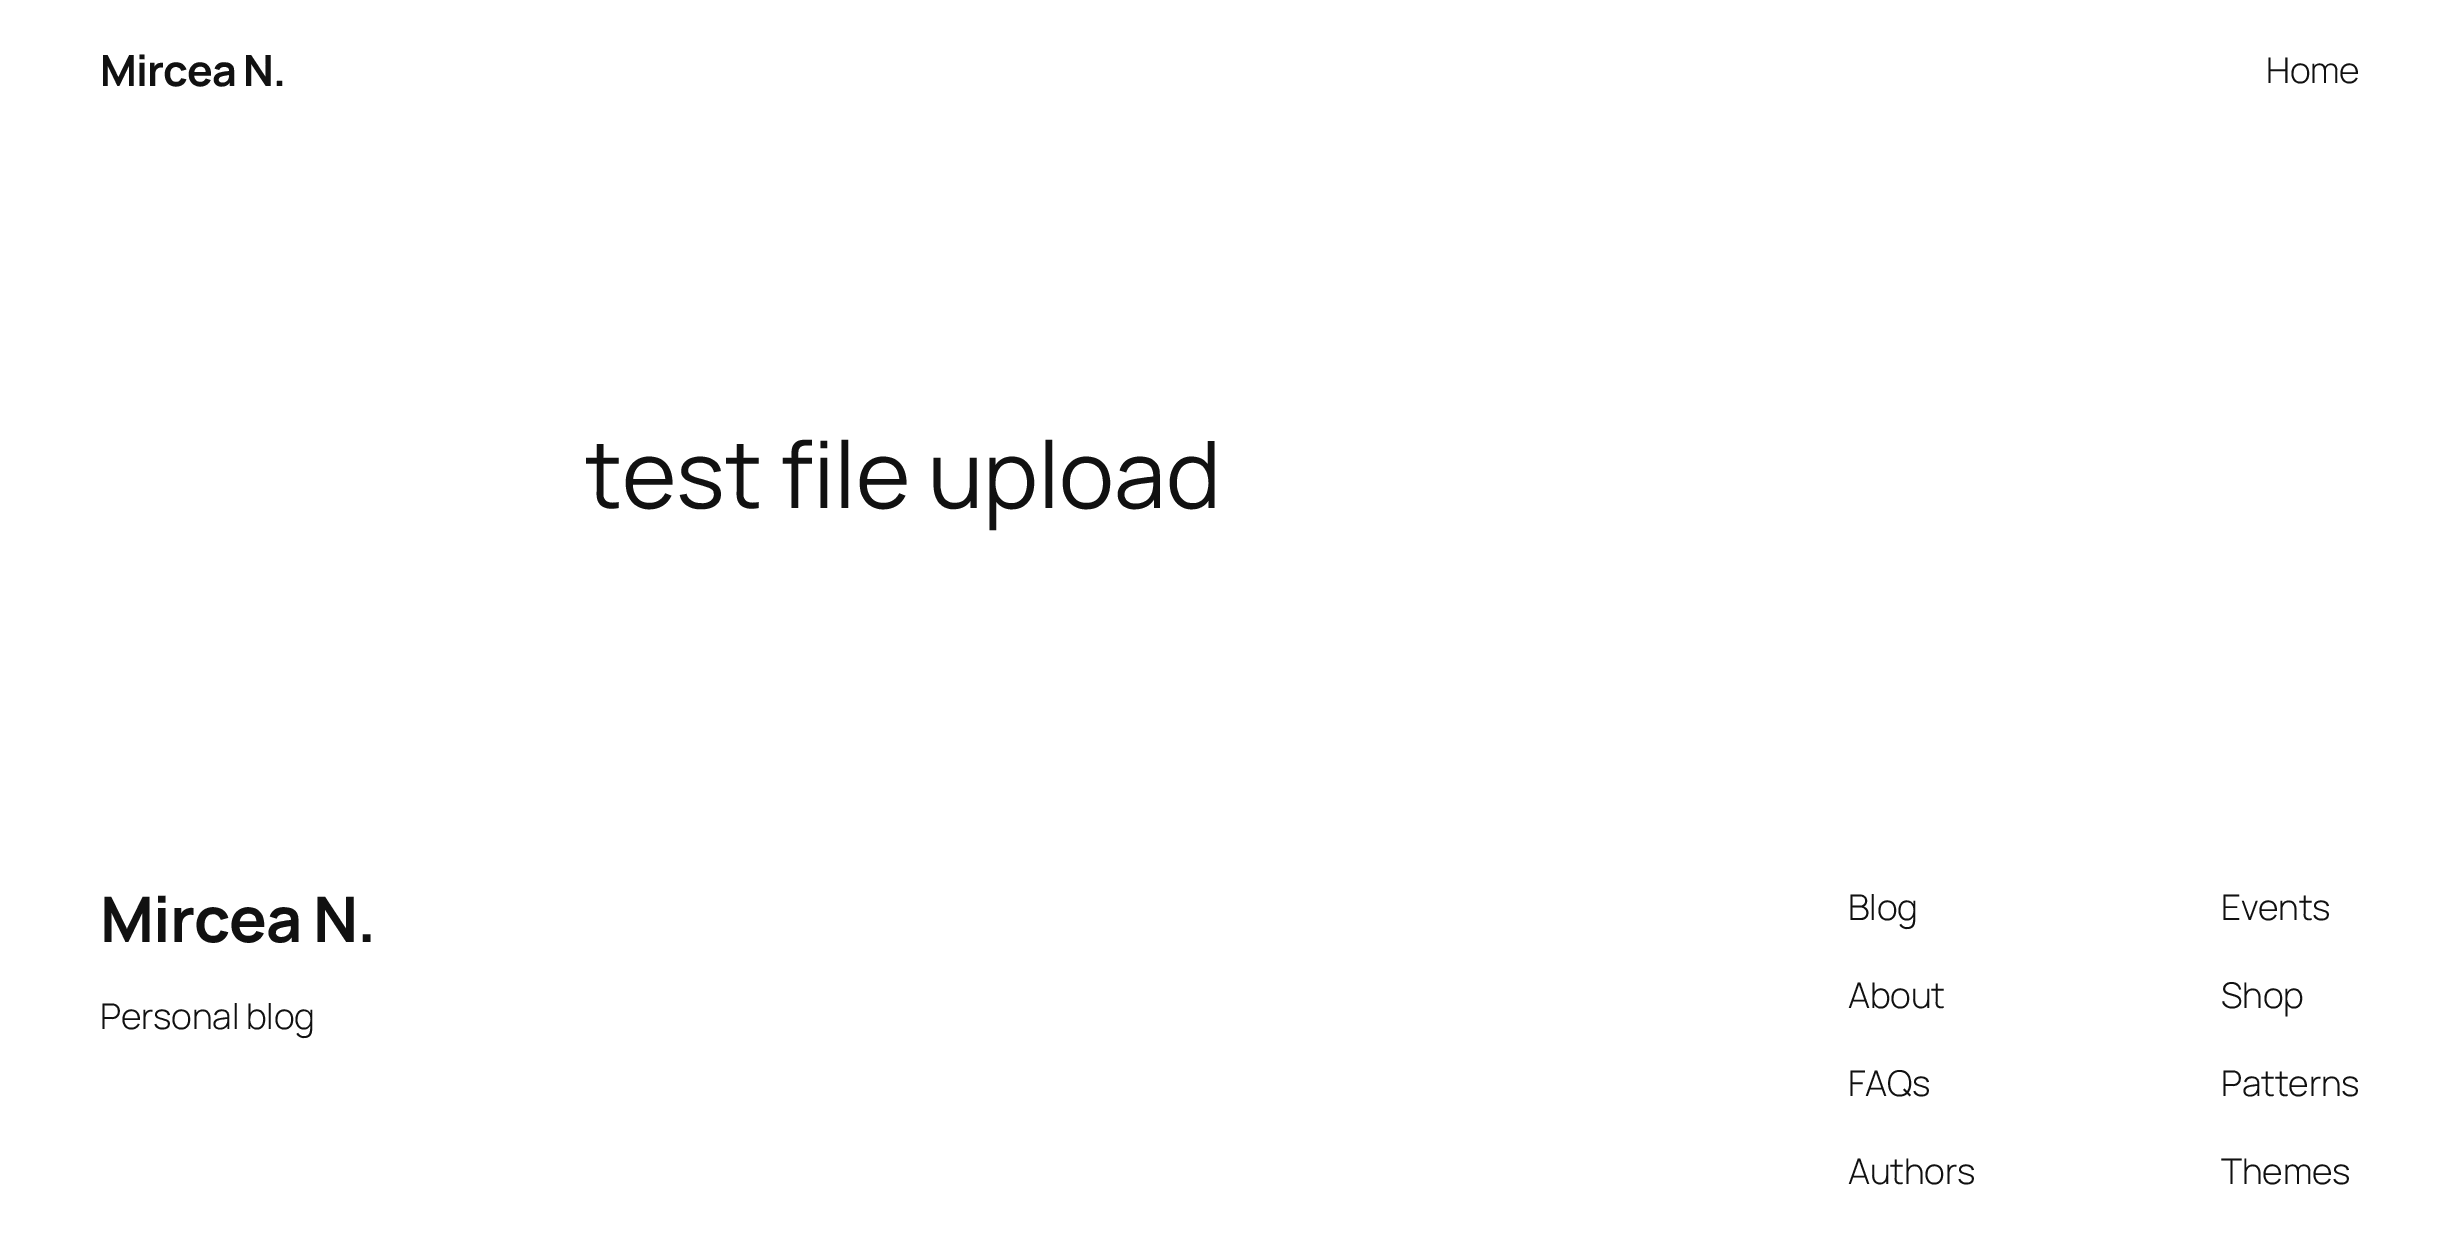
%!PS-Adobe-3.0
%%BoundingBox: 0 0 2460 1237
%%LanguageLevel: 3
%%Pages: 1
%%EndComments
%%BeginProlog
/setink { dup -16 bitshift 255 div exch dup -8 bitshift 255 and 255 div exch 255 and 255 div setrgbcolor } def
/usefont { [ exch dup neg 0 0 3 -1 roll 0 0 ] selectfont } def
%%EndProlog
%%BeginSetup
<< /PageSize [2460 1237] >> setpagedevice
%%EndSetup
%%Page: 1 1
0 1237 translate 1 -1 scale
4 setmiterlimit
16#FFFFFF setink
0 0 2460 1237 rectfill
/Manrope-Bold 43 usefont
16#111111 setink
100 86 moveto -1 0 (Mircea N.) ashow
/Manrope-Light 35.5 usefont
2266 83 moveto -0.25 0 (Home) ashow
/Manrope-Regular 93 usefont
585 508 moveto -0.25 0 (test file upload) ashow
/Manrope-Bold 63 usefont
100 942 moveto -1 0 (Mircea N.) ashow
/Manrope-Light 35.5 usefont
100 1029 moveto -0.25 0 (Personal blog) ashow
1848 920 moveto -0.25 0 (Blog) ashow
1848 1008 moveto -0.25 0 (About) ashow
1848 1096 moveto -0.25 0 (FAQs) ashow
1848 1184 moveto -0.25 0 (Authors) ashow
2221 920 moveto -0.25 0 (Events) ashow
2221 1008 moveto -0.25 0 (Shop) ashow
2221 1096 moveto -0.25 0 (Patterns) ashow
2221 1184 moveto -0.25 0 (Themes) ashow
showpage
%%EOF
